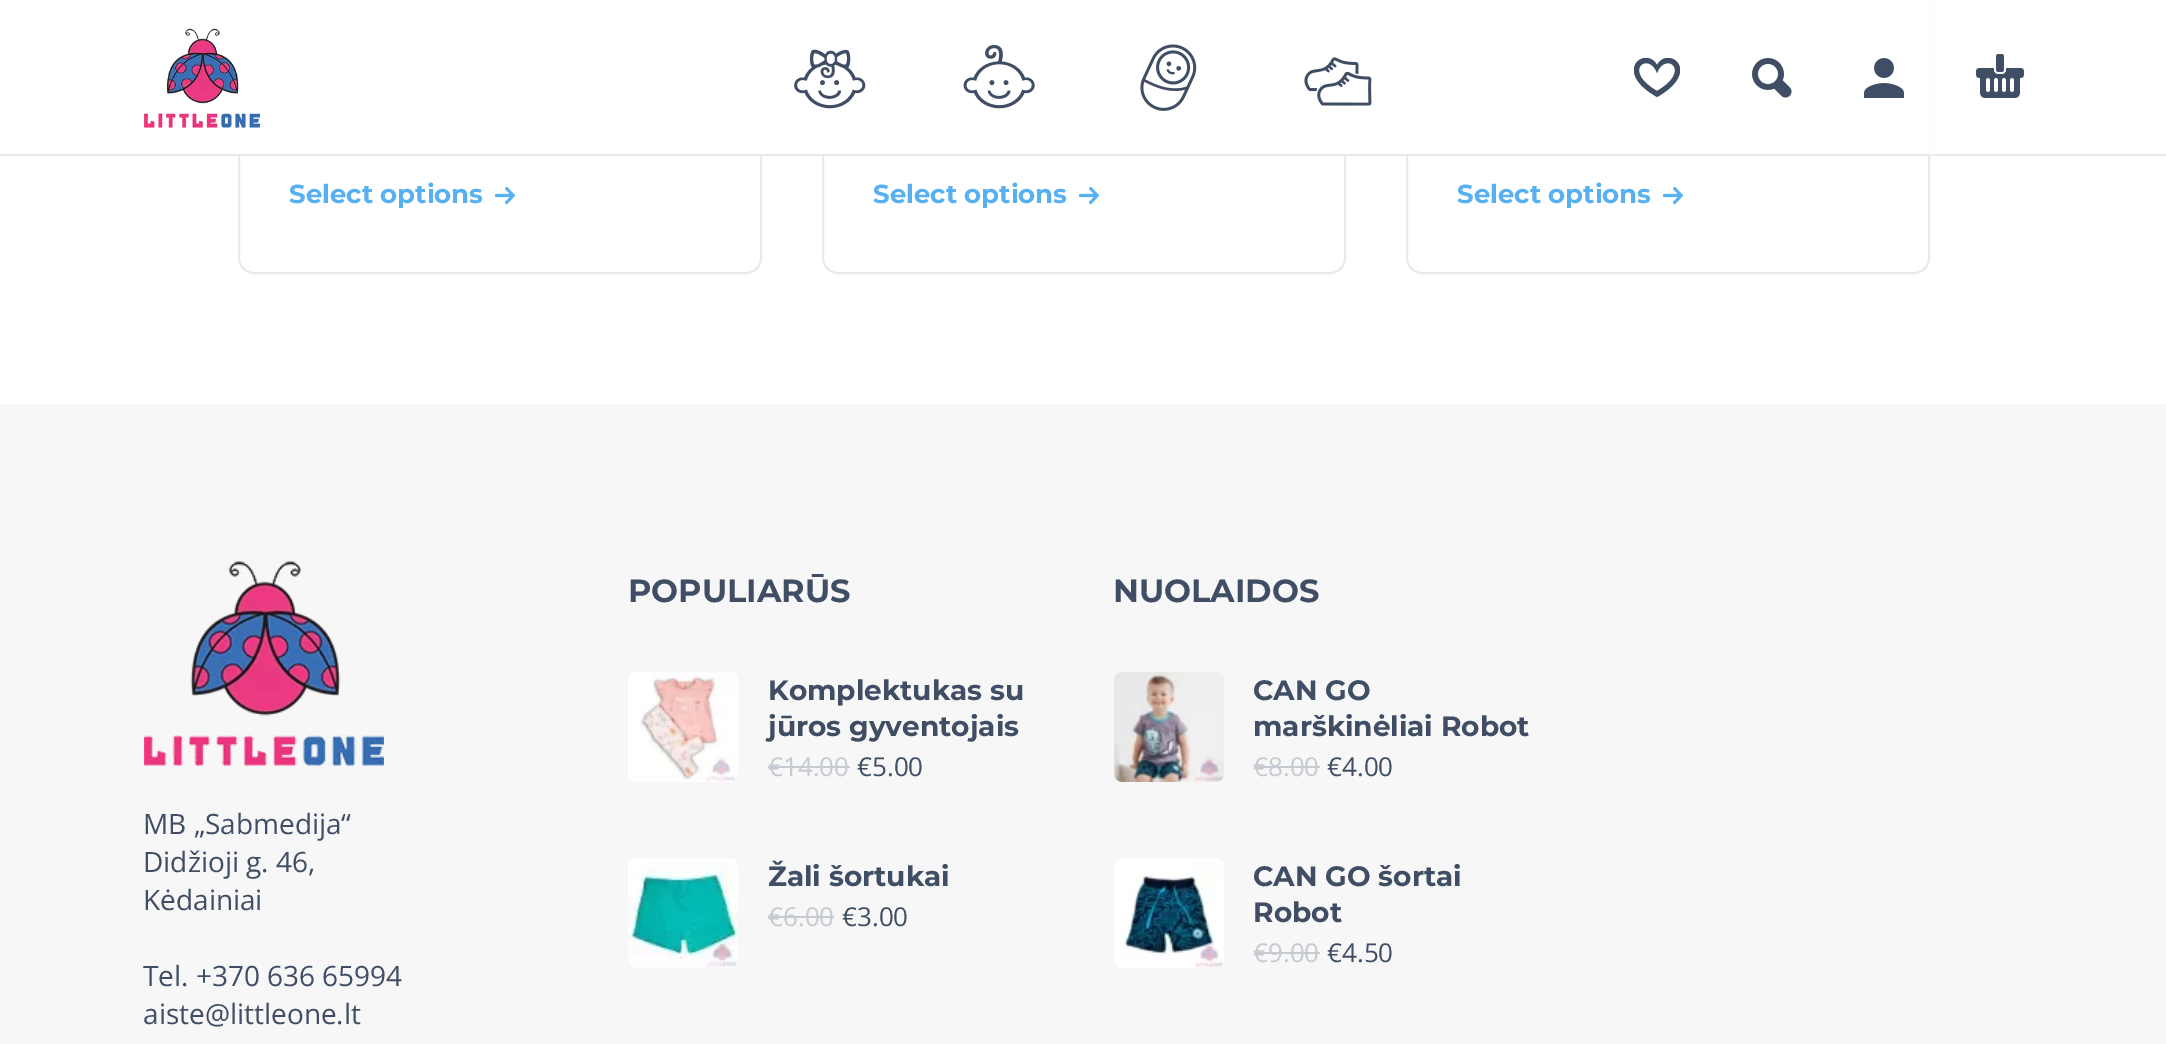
%!PS-Adobe-3.0
%%BoundingBox: 0 0 2166 1044
%%LanguageLevel: 3
%%Pages: 1
%%EndComments
%%BeginProlog
/setink { dup -16 bitshift 255 div exch dup -8 bitshift 255 and 255 div exch 255 and 255 div setrgbcolor } def
/usefont { [ exch dup neg 0 0 3 -1 roll 0 0 ] selectfont } def
/rrect { 5 dict begin { /r /h /w /y /x } { exch def } forall
  x r add y moveto x w add y 2 copy h add r arct x w add y h add x 1 index r arct
  x y h add x y r arct x y 2 copy exch w add exch r arct closepath end } def
/drawimage { 5 dict begin { /h /w /y /x /name } { exch def } forall
  gsave x y translate w h scale
  w h 8 [w 0 0 h 0 0] name (r) file false 3 colorimage grestore end } def
%%EndProlog
%%BeginSetup
<< /PageSize [2166 1044] >> setpagedevice
%%EndSetup
%%Page: 1 1
0 1044 translate 1 -1 scale
4 setmiterlimit
16#FFFFFF setink
0 0 2166 1044 rectfill
16#EAEAEA setink
2 setlinewidth
239 -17 522 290 15 rrect stroke
823 -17 522 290 15 rrect stroke
1407 -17 522 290 15 rrect stroke
16#FFFFFF setink
238 0 1692 154 rectfill
16#EAEAEA setink
0 154 2166 2 rectfill
(img1.raw) 144 28 116 100 drawimage
gsave
1634 58 46 40 rectclip
16#404E65 setink
1657 73 moveto 1657 65 lineto 1646 45 1611 71 1657 97 curveto 1657 91 lineto 1621 70 1649 51 1657 73 curveto closepath 1657 91 moveto 1657 97 lineto 1703 71 1668 45 1657 65 curveto 1657 73 lineto 1665 51 1693 70 1657 91 curveto closepath eofill
grestore
(img2.raw) 1752 58 40 40 drawimage
(img3.raw) 1864 58 40 40 drawimage
(img4.raw) 1976 54 48 44 drawimage
(img5.raw) 794 49 72 60 drawimage
(img6.raw) 963 45 72 64 drawimage
(img7.raw) 1140 44 57 67 drawimage
(img8.raw) 1304 57 68 49 drawimage
/Montserrat-Bold 26 usefont
16#56B0F2 setink
289 203 moveto (Select options) show
(img9.raw) 495 186 20 19 drawimage
873 203 moveto (Select options) show
(img9.raw) 1079 186 20 19 drawimage
1457 203 moveto (Select options) show
(img9.raw) 1663 186 20 19 drawimage
16#F7F7F7 setink
0 404 2166 640 rectfill
(img10.raw) 144 561 240 205 drawimage
/OpenSans-Regular 28 usefont
16#404E65 setink
[
    [(MB „Sabmedija“) 143 834]
    [(Didžioji g. 46,) 143 872]
    [(Kėdainiai) 143 910]
    [(Tel. +370 636 65994) 143 986]
    [(aiste@littleone.lt) 143 1024]
] { aload pop moveto show } forall
/Montserrat-Bold 32 usefont
628 602 moveto (POPULIARŪS) show
(img11.raw) 628 672 110 110 drawimage
/Montserrat-Bold 28 usefont
768 700 moveto (Komplektukas su) show
768 736 moveto (jūros gyventojais) show
/OpenSans-Regular 26 usefont
16#C6CAD1 setink
768 776 moveto (€14.00) show
768 766 82 2 rectfill
16#404E65 setink
857 776 moveto (€5.00) show
(img12.raw) 628 858 110 110 drawimage
/Montserrat-Bold 28 usefont
768 886 moveto (Žali šortukai) show
/OpenSans-Regular 26 usefont
16#C6CAD1 setink
768 926 moveto (€6.00) show
768 916 66 2 rectfill
16#404E65 setink
842 926 moveto (€3.00) show
/Montserrat-Bold 32 usefont
1113 602 moveto (NUOLAIDOS) show
(img13.raw) 1114 672 110 110 drawimage
/Montserrat-Bold 28 usefont
1253 700 moveto (CAN GO) show
1253 736 moveto (marškinėliai Robot) show
/OpenSans-Regular 26 usefont
16#C6CAD1 setink
1253 776 moveto (€8.00) show
1254 766 66 2 rectfill
16#404E65 setink
1327 776 moveto (€4.00) show
(img14.raw) 1114 858 110 110 drawimage
/Montserrat-Bold 28 usefont
1253 886 moveto (CAN GO šortai) show
1253 922 moveto (Robot) show
/OpenSans-Regular 26 usefont
16#C6CAD1 setink
1253 962 moveto (€9.00) show
1254 952 66 2 rectfill
16#404E65 setink
1327 962 moveto (€4.50) show
showpage
%%EOF
